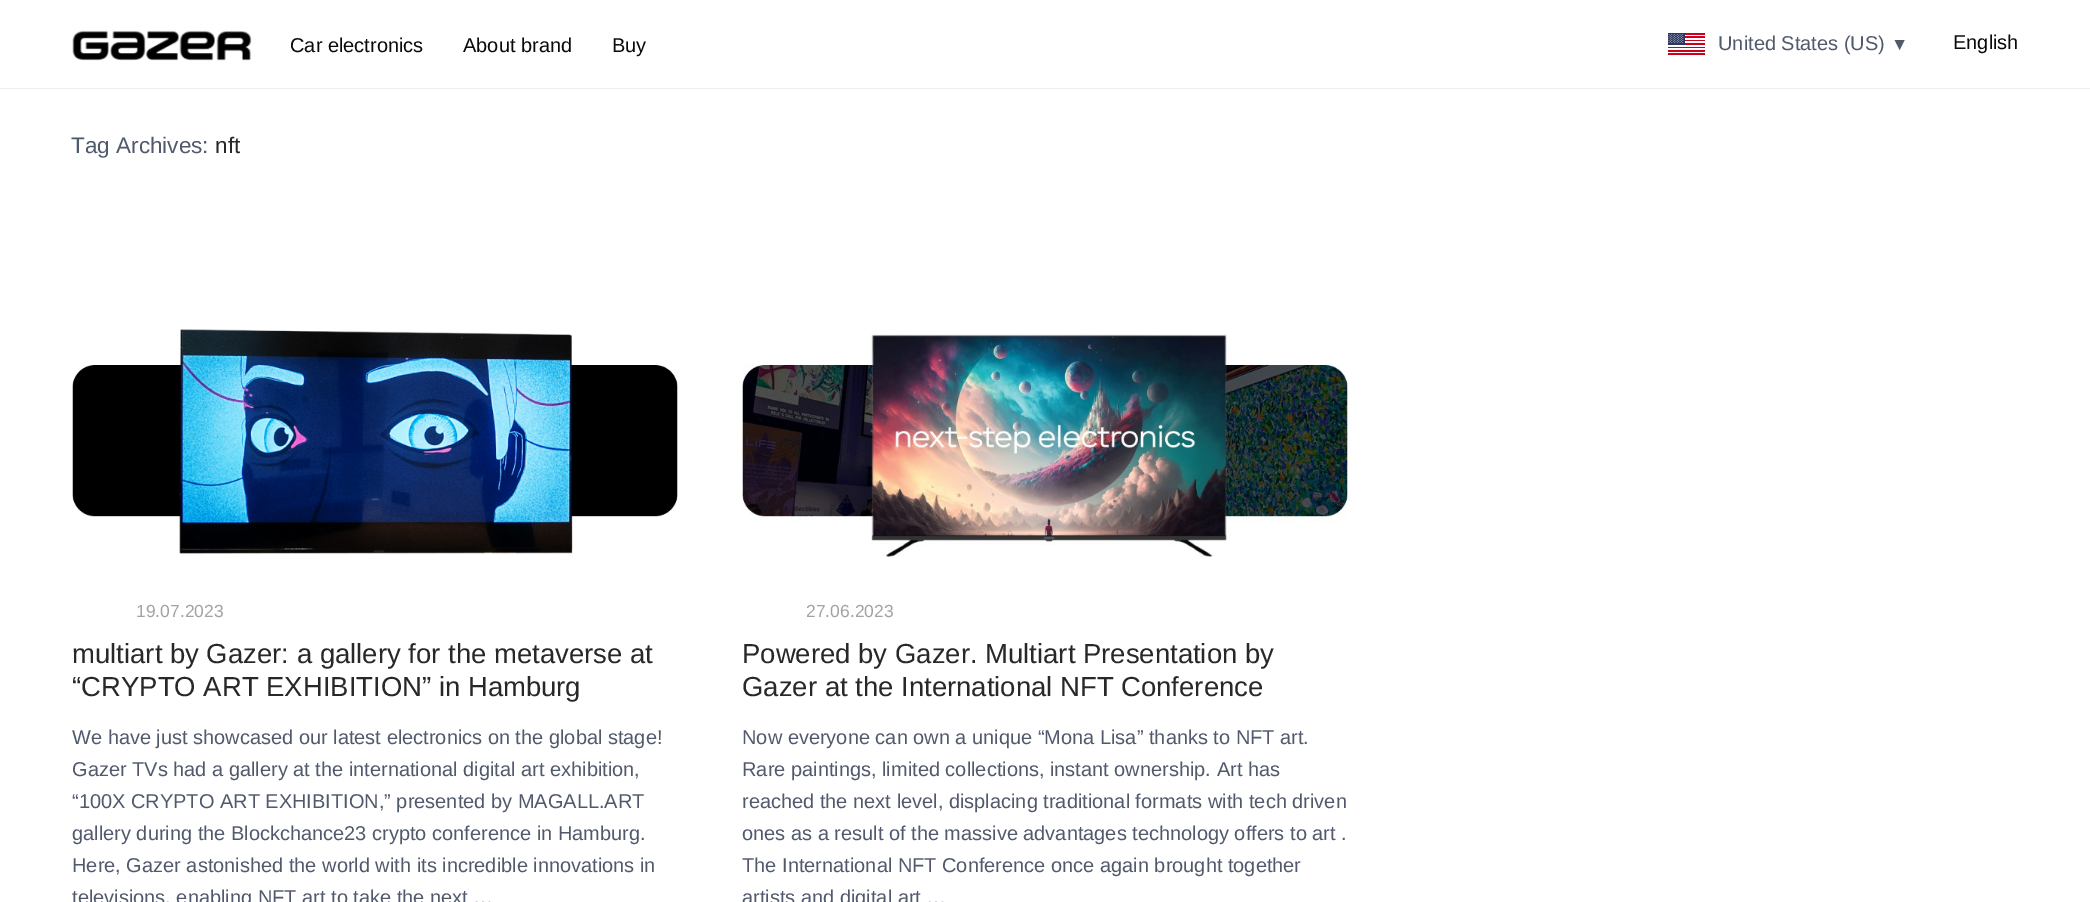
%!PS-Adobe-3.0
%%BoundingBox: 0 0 2090 902
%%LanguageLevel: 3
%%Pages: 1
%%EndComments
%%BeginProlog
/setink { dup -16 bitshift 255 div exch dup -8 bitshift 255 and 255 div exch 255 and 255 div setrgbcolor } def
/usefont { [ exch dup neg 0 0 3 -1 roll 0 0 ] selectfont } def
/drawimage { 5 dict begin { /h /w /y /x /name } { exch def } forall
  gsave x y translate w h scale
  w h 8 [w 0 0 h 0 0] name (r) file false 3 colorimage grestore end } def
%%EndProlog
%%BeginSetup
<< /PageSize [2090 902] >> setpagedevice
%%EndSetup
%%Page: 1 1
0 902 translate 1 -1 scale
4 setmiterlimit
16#FFFFFF setink
0 0 2090 902 rectfill
16#EEEEEE setink
0 88 2090 1 rectfill
(img1.raw) 72 30 180 31 drawimage
/LiberationSans-Regular 20 usefont
16#0A0A0A setink
[
    [(Car electronics) 290 52]
    [(About brand) 463 52]
    [(Buy) 612 52]
] { aload pop moveto show } forall
(img2.raw) 1668 33 37 22 drawimage
16#515A6C setink
1718 50 moveto (United States \(US\)) show
/LiberationSans-Regular 17.5 usefont
1891 50 moveto (▼) show
/LiberationSans-Regular 20 usefont
16#0A0A0A setink
1953 49 moveto (English) show
/LiberationSans-Regular 22.5 usefont
16#515A6C setink
71 153 moveto (Tag Archives:) show
16#282828 setink
215 153 moveto (nft) show
(img3.raw) 72 329 606 225 drawimage
/LiberationSans-Regular 17.5 usefont
16#A3A3A3 setink
136 617 moveto (19.07.2023) show
/LiberationSans-Regular 27.5 usefont
16#282828 setink
72 663 moveto (multiart by Gazer: a gallery for the metaverse at) show
72 696 moveto (“CRYPTO ART EXHIBITION” in Hamburg) show
/LiberationSans-Regular 20 usefont
16#515A6C setink
[
    [(We have just showcased our latest electronics on the global stage!) 72 744]
    [(Gazer TVs had a gallery at the international digital art exhibition,) 72 776]
    [(“100X CRYPTO ART EXHIBITION,” presented by MAGALL.ART) 72 808]
    [(gallery during the Blockchance23 crypto conference in Hamburg.) 72 840]
    [(Here, Gazer astonished the world with its incredible innovations in) 72 872]
    [(televisions, enabling NFT art to take the next …) 72 904]
] { aload pop moveto show } forall
(img4.raw) 742 333 606 224 drawimage
/LiberationSans-Regular 17.5 usefont
16#A3A3A3 setink
806 617 moveto (27.06.2023) show
/LiberationSans-Regular 27.5 usefont
16#282828 setink
742 663 moveto (Powered by Gazer. Multiart Presentation by) show
742 696 moveto (Gazer at the International NFT Conference) show
/LiberationSans-Regular 20 usefont
16#515A6C setink
[
    [(Now everyone can own a unique “Mona Lisa” thanks to NFT art.) 742 744]
    [(Rare paintings, limited collections, instant ownership. Art has) 742 776]
    [(reached the next level, displacing traditional formats with tech driven) 742 808]
    [(ones as a result of the massive advantages technology offers to art .) 742 840]
    [(The International NFT Conference once again brought together) 742 872]
    [(artists and digital art …) 742 904]
] { aload pop moveto show } forall
showpage
%%EOF
